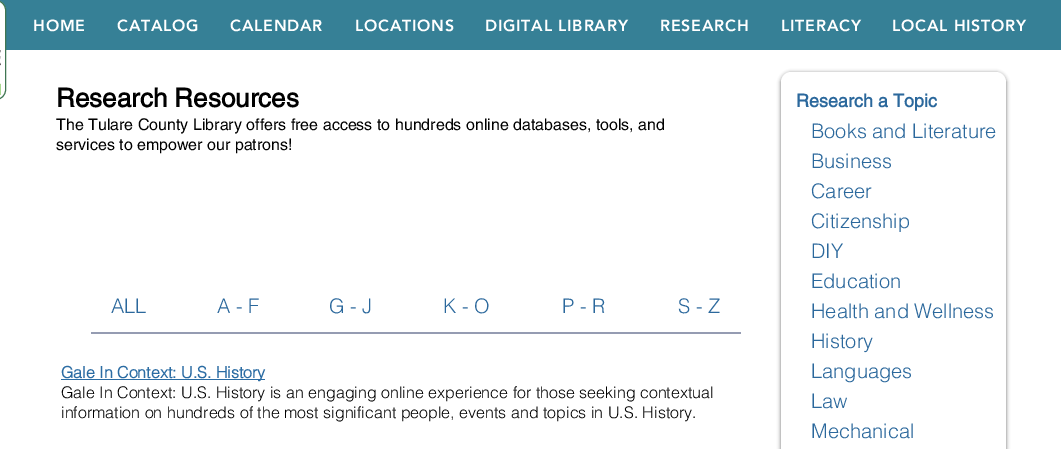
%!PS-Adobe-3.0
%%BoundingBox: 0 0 1061 449
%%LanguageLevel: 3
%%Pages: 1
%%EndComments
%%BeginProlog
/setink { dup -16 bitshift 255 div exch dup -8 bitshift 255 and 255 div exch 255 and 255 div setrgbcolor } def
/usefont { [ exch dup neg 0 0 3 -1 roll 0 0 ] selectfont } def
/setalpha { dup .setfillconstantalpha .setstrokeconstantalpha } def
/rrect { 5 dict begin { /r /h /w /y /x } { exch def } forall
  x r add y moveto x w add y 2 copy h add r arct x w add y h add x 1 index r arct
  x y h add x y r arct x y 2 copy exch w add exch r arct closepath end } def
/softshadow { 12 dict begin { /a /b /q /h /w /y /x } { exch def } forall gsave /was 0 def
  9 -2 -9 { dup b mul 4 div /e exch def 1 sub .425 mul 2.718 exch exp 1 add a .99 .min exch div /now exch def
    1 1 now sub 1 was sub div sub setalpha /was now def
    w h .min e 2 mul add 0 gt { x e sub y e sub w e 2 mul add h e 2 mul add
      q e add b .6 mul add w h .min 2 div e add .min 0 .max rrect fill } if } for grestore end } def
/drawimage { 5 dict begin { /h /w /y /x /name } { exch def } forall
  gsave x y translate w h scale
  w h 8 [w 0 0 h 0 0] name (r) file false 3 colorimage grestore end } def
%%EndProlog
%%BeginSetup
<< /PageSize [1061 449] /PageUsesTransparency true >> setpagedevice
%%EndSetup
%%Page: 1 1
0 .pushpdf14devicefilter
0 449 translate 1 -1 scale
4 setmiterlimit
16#FFFFFF setink
0 0 1061 449 rectfill
16#368096 setink
0 0 1061 50 rectfill
16#FFFFFF setink
-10.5 0.5 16 99 9.5 rrect gsave fill grestore
16#3F7652 setink
stroke
(img1.raw) 0 50 1 45 drawimage
/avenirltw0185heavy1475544-Black 16 usefont
16#FFFFFF setink
33 31 moveto 0.75 0 (HOME) ashow
117 31 moveto 0.75 0 (CATALOG) ashow
230 31 moveto 0.75 0 (CALENDAR) ashow
355 31 moveto 0.75 0 (LOCATIONS) ashow
485 31 moveto 0.75 0 (DIGITAL LIBRARY) ashow
660 31 moveto 0.75 0 (RESEARCH) ashow
781 31 moveto 0.75 0 (LITERACY) ashow
892 31 moveto 0.75 0 (LOCAL HISTORY) ashow
/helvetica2-Bold 26 usefont
16#000000 setink
56 107 moveto (Research Resources) show
/helvetica-Regular 16 usefont
56 130 moveto (The Tulare County Library offers free access to hundreds online databases, tools, and) show
56 150 moveto (services to empower our patrons!) show
781 73 225 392 10 2 0.6 softshadow
16#FFFFFF setink
781 72 225 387 10 rrect fill
/helvetica2-Bold 18 usefont
16#2B689C setink
796 107 moveto (Research a Topic) show
/helvetica-Light 20 usefont
[
    [(Books and Literature) 811 138]
    [(Business) 811 168]
    [(Career) 811 198]
    [(Citizenship) 811 228]
    [(DIY) 811 258]
    [(Education) 811 288]
    [(Health and Wellness) 811 318]
    [(History) 811 348]
    [(Languages) 811 378]
    [(Law) 811 408]
    [(Mechanical) 811 438]
    [(ALL) 111 313]
    [(A - F) 217 313]
    [(G - J) 329 313]
    [(K - O) 443 313]
    [(P - R) 562 313]
    [(S - Z) 678 313]
] { aload pop moveto show } forall
16#959CB2 setink
91 332 650 2 rectfill
16#2B6CA3 setink
61 379 204 1 rectfill
/helvetica-Bold 16 usefont
61 378 moveto (Gale In Context: U.S. History) show
/helvetica-Light 16 usefont
16#000000 setink
61 398 moveto (Gale In Context: U.S. History is an engaging online experience for those seeking contextual) show
61 418 moveto (information on hundreds of the most significant people, events and topics in U.S. History.) show
.poppdf14devicefilter showpage
%%EOF
